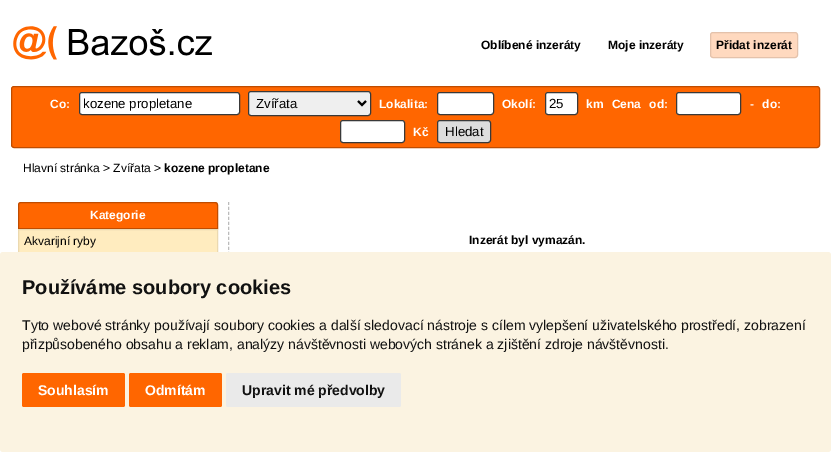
%!PS-Adobe-3.0
%%BoundingBox: 0 0 831 452
%%LanguageLevel: 3
%%Pages: 1
%%EndComments
%%BeginProlog
/setink { dup -16 bitshift 255 div exch dup -8 bitshift 255 and 255 div exch 255 and 255 div setrgbcolor } def
/usefont { [ exch dup neg 0 0 3 -1 roll 0 0 ] selectfont } def
/rrect { 5 dict begin { /r /h /w /y /x } { exch def } forall
  x r add y moveto x w add y 2 copy h add r arct x w add y h add x 1 index r arct
  x y h add x y r arct x y 2 copy exch w add exch r arct closepath end } def
/drawimage { 5 dict begin { /h /w /y /x /name } { exch def } forall
  gsave x y translate w h scale
  w h 8 [w 0 0 h 0 0] name (r) file false 3 colorimage grestore end } def
%%EndProlog
%%BeginSetup
<< /PageSize [831 452] >> setpagedevice
%%EndSetup
%%Page: 1 1
0 452 translate 1 -1 scale
4 setmiterlimit
16#FFFFFF setink
0 0 831 452 rectfill
(img1.raw) 13 26 199 34 drawimage
/LiberationSans-Bold 12 usefont
16#000000 setink
481 49 moveto (Oblíbené inzeráty) show
608 49 moveto (Moje inzeráty) show
16#FFD9BF setink
710.5 32.5 87 25 2.5 rrect gsave fill grestore
16#E4C2AB setink
stroke
16#000000 setink
716 49 moveto (Přidat inzerát) show
16#FF6600 setink
11.5 86.5 808 61 2.5 rrect gsave fill grestore
16#BF4C00 setink
stroke
16#FFFFFF setink
50 108 moveto (Co:) show
79.5 92.5 160 22 2.5 rrect gsave fill grestore
16#393939 setink
stroke
/LiberationSans-Regular 13.25 usefont
16#000000 setink
83 108 moveto (kozene propletane) show
16#EFEFEF setink
248.5 91.5 122 24 2.5 rrect gsave fill grestore
16#393939 setink
stroke
16#000000 setink
2 setlinewidth
358 101 moveto 362 105 lineto 366 101 lineto stroke
256 108 moveto (Zvířata) show
/LiberationSans-Bold 12 usefont
16#FFFFFF setink
379 108 moveto (Lokalita:) show
437.5 92.5 56 22 2.5 rrect gsave fill grestore
16#393939 setink
1 setlinewidth
stroke
16#FFFFFF setink
502 108 moveto (Okolí:) show
545.5 92.5 32 22 2.5 rrect gsave fill grestore
16#393939 setink
stroke
/LiberationSans-Regular 13.25 usefont
16#000000 setink
549 108 moveto (25) show
/LiberationSans-Bold 12 usefont
16#FFFFFF setink
586 108 moveto 5 0 32 (km Cena od:) widthshow
676.5 92.5 64 22 2.5 rrect gsave fill grestore
16#393939 setink
stroke
16#FFFFFF setink
750 108 moveto 5 0 32 (- do:) widthshow
340.5 120.5 64 22 2.5 rrect gsave fill grestore
16#393939 setink
stroke
16#FFFFFF setink
413 136 moveto (Kč) show
16#DDDDDD setink
437.5 120.5 53 22 2.5 rrect gsave fill grestore
16#393939 setink
stroke
/LiberationSans-Regular 13.25 usefont
16#000000 setink
445 136 moveto (Hledat) show
/LiberationSans-Regular 12 usefont
23 172 moveto (Hlavní stránka > Zvířata >) show
/LiberationSans-Bold 12 usefont
164 172 moveto (kozene propletane) show
16#BBBBBB setink
[3 1.99] 0 setdash
228.5 202 moveto 228.5 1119 lineto stroke
16#FF6600 setink
21 202.5 moveto 215 202.5 lineto 216.5 202.5 217.5 203.5 217.5 205 curveto 217.5 228.5 lineto 18.5 228.5 lineto 18.5 205 lineto 18.5 203.5 19.5 202.5 21 202.5 curveto closepath gsave fill grestore
16#BF4C00 setink
[] 0 setdash
stroke
16#FFFFFF setink
90 219 moveto (Kategorie) show
16#FFECBF setink
19 230 198 22 rectfill
16#EBD9B0 setink
18.5 229.5 199 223 rectstroke
/LiberationSans-Regular 12 usefont
16#000000 setink
24 245 moveto (Akvarijní ryby) show
/LiberationSans-Bold 12 usefont
469 244 moveto (Inzerát byl vymazán.) show
16#FBF3E1 setink
0 252 831 200 3 rrect fill
/LiberationSans-Bold 20 usefont
16#111111 setink
22 294 moveto (Používáme soubory cookies) show
/LiberationSans-Regular 14 usefont
22 330 moveto (Tyto webové stránky používají soubory cookies a další sledovací nástroje s cílem vylepšení uživatelského prostředí, zobrazení) show
22 349 moveto (přizpůsobeného obsahu a reklam, analýzy návštěvnosti webových stránek a zjištění zdroje návštěvnosti.) show
16#FF6600 setink
22 373 103 34 2 rrect fill
/LiberationSans-Bold 14 usefont
16#FFFFFF setink
38 395 moveto (Souhlasím) show
16#FF6600 setink
129 373 93 34 2 rrect fill
16#FFFFFF setink
145 395 moveto (Odmítám) show
16#EAEAEA setink
226 373 175 34 2 rrect fill
16#111111 setink
242 395 moveto (Upravit mé předvolby) show
showpage
%%EOF
